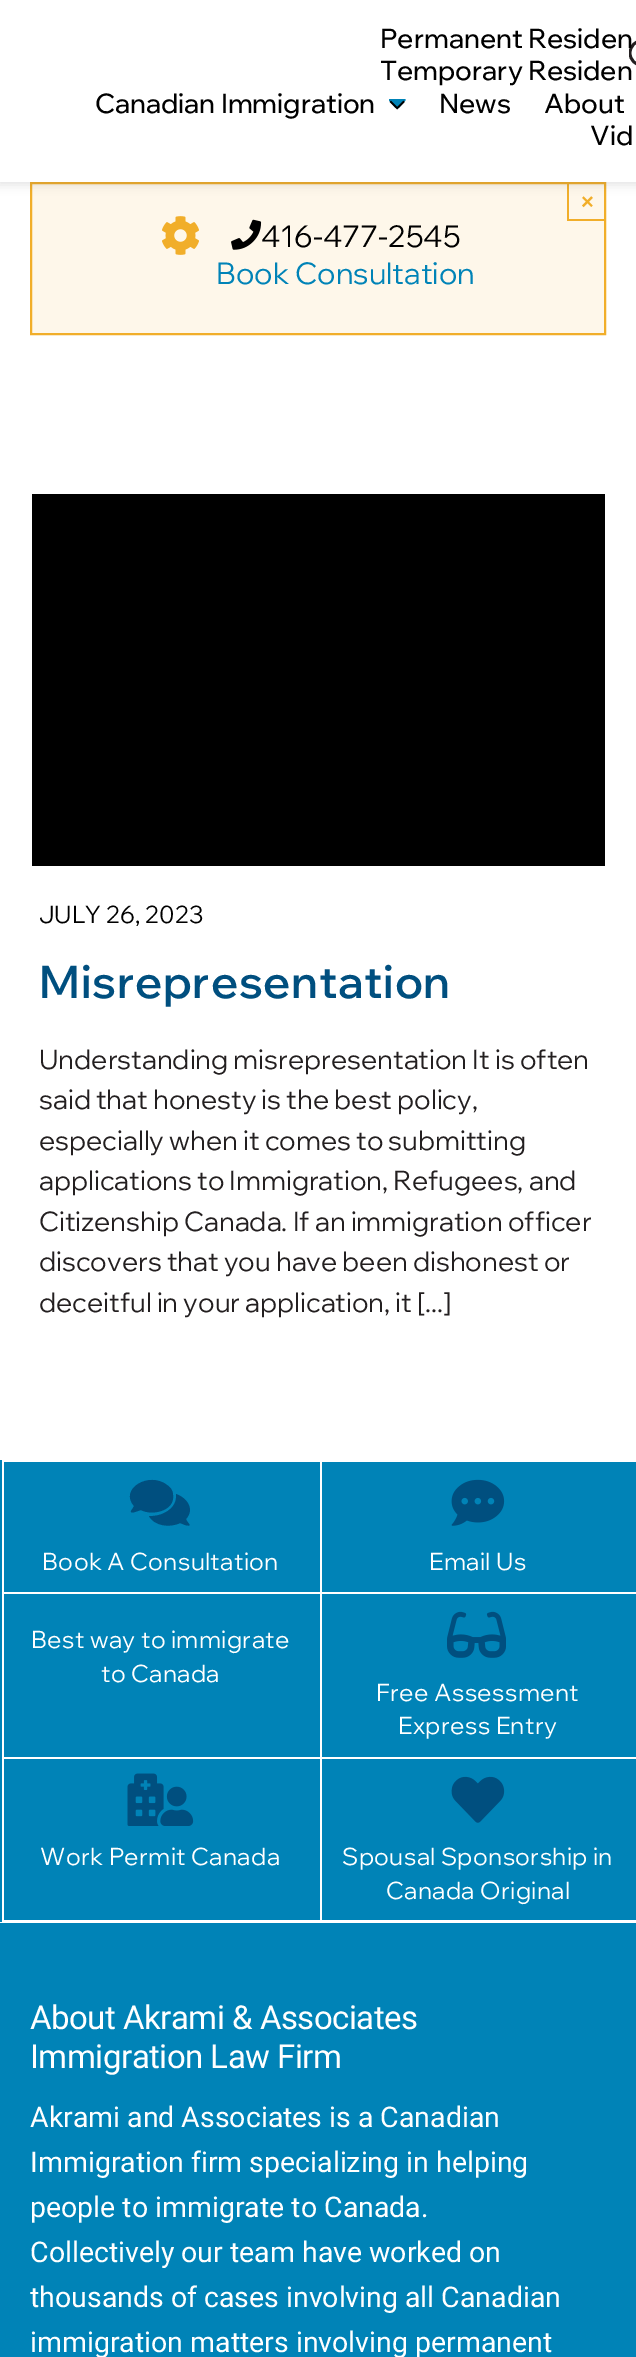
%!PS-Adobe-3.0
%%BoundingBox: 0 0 636 2357
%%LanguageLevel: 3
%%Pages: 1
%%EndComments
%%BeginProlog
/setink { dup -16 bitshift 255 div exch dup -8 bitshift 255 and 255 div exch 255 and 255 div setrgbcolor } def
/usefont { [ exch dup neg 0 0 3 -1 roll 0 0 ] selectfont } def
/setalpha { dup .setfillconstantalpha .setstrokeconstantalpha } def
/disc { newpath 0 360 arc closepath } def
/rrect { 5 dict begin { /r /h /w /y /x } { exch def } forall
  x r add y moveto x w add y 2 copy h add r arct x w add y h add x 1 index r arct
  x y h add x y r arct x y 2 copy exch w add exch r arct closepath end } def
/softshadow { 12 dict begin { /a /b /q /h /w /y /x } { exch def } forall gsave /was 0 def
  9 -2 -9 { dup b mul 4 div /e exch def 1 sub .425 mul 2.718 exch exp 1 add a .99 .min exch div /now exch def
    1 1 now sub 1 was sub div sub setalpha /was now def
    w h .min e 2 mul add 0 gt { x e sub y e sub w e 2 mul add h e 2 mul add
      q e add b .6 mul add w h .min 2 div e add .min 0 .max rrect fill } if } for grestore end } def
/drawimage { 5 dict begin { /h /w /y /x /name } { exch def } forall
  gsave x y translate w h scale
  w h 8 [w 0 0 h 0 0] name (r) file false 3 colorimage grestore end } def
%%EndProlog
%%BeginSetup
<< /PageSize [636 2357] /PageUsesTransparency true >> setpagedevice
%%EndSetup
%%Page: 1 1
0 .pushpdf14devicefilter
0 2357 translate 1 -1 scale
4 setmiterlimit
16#FFFFFF setink
0 0 636 2357 rectfill
16#FEF7EA setink
31 183 moveto 605 183 lineto 605 334 lineto 31 334 lineto closepath gsave fill grestore
16#F1AE2A setink
2 setlinewidth
stroke
567 219 39 2 rectfill
567 182 2 39 rectfill
16#414042 setink
-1 0 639 185 0 5 0.15 softshadow
16#FFFFFF setink
0 0 636 182 rectfill
gsave
629 39 7 33 rectclip
16#231F20 setink
2.8 setlinewidth
642.5 53 12.5 disc stroke
grestore
/WixMadeforDisplay-Medium 27 usefont
16#000000 setink
[
    [(Permanent Residen) 380 48]
    [(Temporary Residen) 380 80]
    [(Canadian Immigration) 95 113]
] { aload pop moveto show } forall
(img1.raw) 389 99 17 9 drawimage
(img2.raw) 389 100 16 10 drawimage
[
    [(News) 439 113]
    [(About) 544 113]
    [(Vid) 590 145]
] { aload pop moveto show } forall
/LiberationSans-Bold 22 usefont
16#F1AE2A setink
581 209 moveto (×) show
(img3.raw) 162 216 37 39 drawimage
(img4.raw) 231 219 31 31 drawimage
/WixMadeforDisplay-Regular 30 usefont
16#000000 setink
261 247 moveto (416-477-2545) show
16#0083B7 setink
216 284 moveto (Book Consultation) show
16#000000 setink
32 494 573 372 rectfill
/WixMadeforDisplay-Regular 24 usefont
39 923 moveto (JULY 26, 2023) show
/WixMadeforDisplay-SemiBold 45 usefont
16#004F7F setink
39 998 moveto 0.7 0 (Misrepresentation) ashow
/WixMadeforDisplay-Regular 27 usefont
16#231F20 setink
[
    [(Understanding misrepresentation It is often) 39 1069]
    [(said that honesty is the best policy,) 39 1109]
    [(especially when it comes to submitting) 39 1150]
    [(applications to Immigration, Refugees, and) 39 1190]
    [(Citizenship Canada. If an immigration officer) 39 1231]
    [(discovers that you have been dishonest or) 39 1271]
    [(deceitful in your application, it [...]) 39 1312]
] { aload pop moveto show } forall
[
    [0 1460 636 462 16#0083B7]
    [2 1461 2 132 16#FFFFFF]
    [2 1460 318 2 16#FFFFFF]
] { aload pop setink rectfill } forall
16#004F7F setink
167 1485 moveto 170 1487 173 1490 173 1495 curveto 175 1511 152 1516 141 1510 curveto 135 1512 lineto 127 1514 133 1509 134 1506 curveto 119 1489 149 1471 167 1485 curveto closepath 186 1519 moveto 187 1523 194 1527 185 1525 curveto 180 1523 lineto 170 1528 154 1526 149 1516 curveto 161 1517 178 1509 176 1494 curveto 187 1498 195 1509 186 1519 curveto closepath fill
/WixMadeforDisplay-Regular 24 usefont
16#FFFFFF setink
42 1570 moveto 0.4 0 (Book A Consultation) ashow
[
    [2 1592 318 2 16#FFFFFF]
    [320 1461 2 132 16#FFFFFF]
    [320 1460 316 2 16#FFFFFF]
] { aload pop setink rectfill } forall
(img5.raw) 451 1479 54 47 drawimage
429 1570 moveto 0.4 0 (Email Us) ashow
320 1592 316 2 rectfill
2 1593 2 165 rectfill
31 1648 moveto 0.4 0 (Best way to immigrate) ashow
101 1682 moveto 0.4 0 (to Canada) ashow
2 1757 318 2 rectfill
320 1593 2 165 rectfill
(img6.raw) 447 1611 59 47 drawimage
376 1701 moveto 0.4 0 (Free Assessment) ashow
398 1734 moveto 0.4 0 (Express Entry) ashow
320 1757 316 2 rectfill
2 1758 2 164 rectfill
(img7.raw) 127 1773 67 53 drawimage
40 1865 moveto 0.4 0 (Work Permit Canada) ashow
2 1920 318 2 rectfill
320 1758 2 164 rectfill
(img8.raw) 451 1776 54 47 drawimage
342 1865 moveto 0.4 0 (Spousal Sponsorship in) ashow
386 1899 moveto 0.4 0 (Canada Original) ashow
320 1920 316 2 rectfill
16#0083B7 setink
0 1923 636 434 rectfill
/Roboto-Regular 33 usefont
16#FFFFFF setink
30 2029 moveto -0.5 0 (About Akrami & Associates) ashow
30 2068 moveto -0.5 0 (Immigration Law Firm) ashow
/Roboto-Regular 28.5 usefont
[
    [(Akrami and Associates is a Canadian) 30 2127]
    [(Immigration firm specializing in helping) 30 2172]
    [(people to immigrate to Canada.) 30 2217]
    [(Collectively our team have worked on) 30 2262]
    [(thousands of cases involving all Canadian) 30 2307]
    [(immigration matters involving permanent) 30 2352]
] { aload pop moveto show } forall
.poppdf14devicefilter showpage
%%EOF
